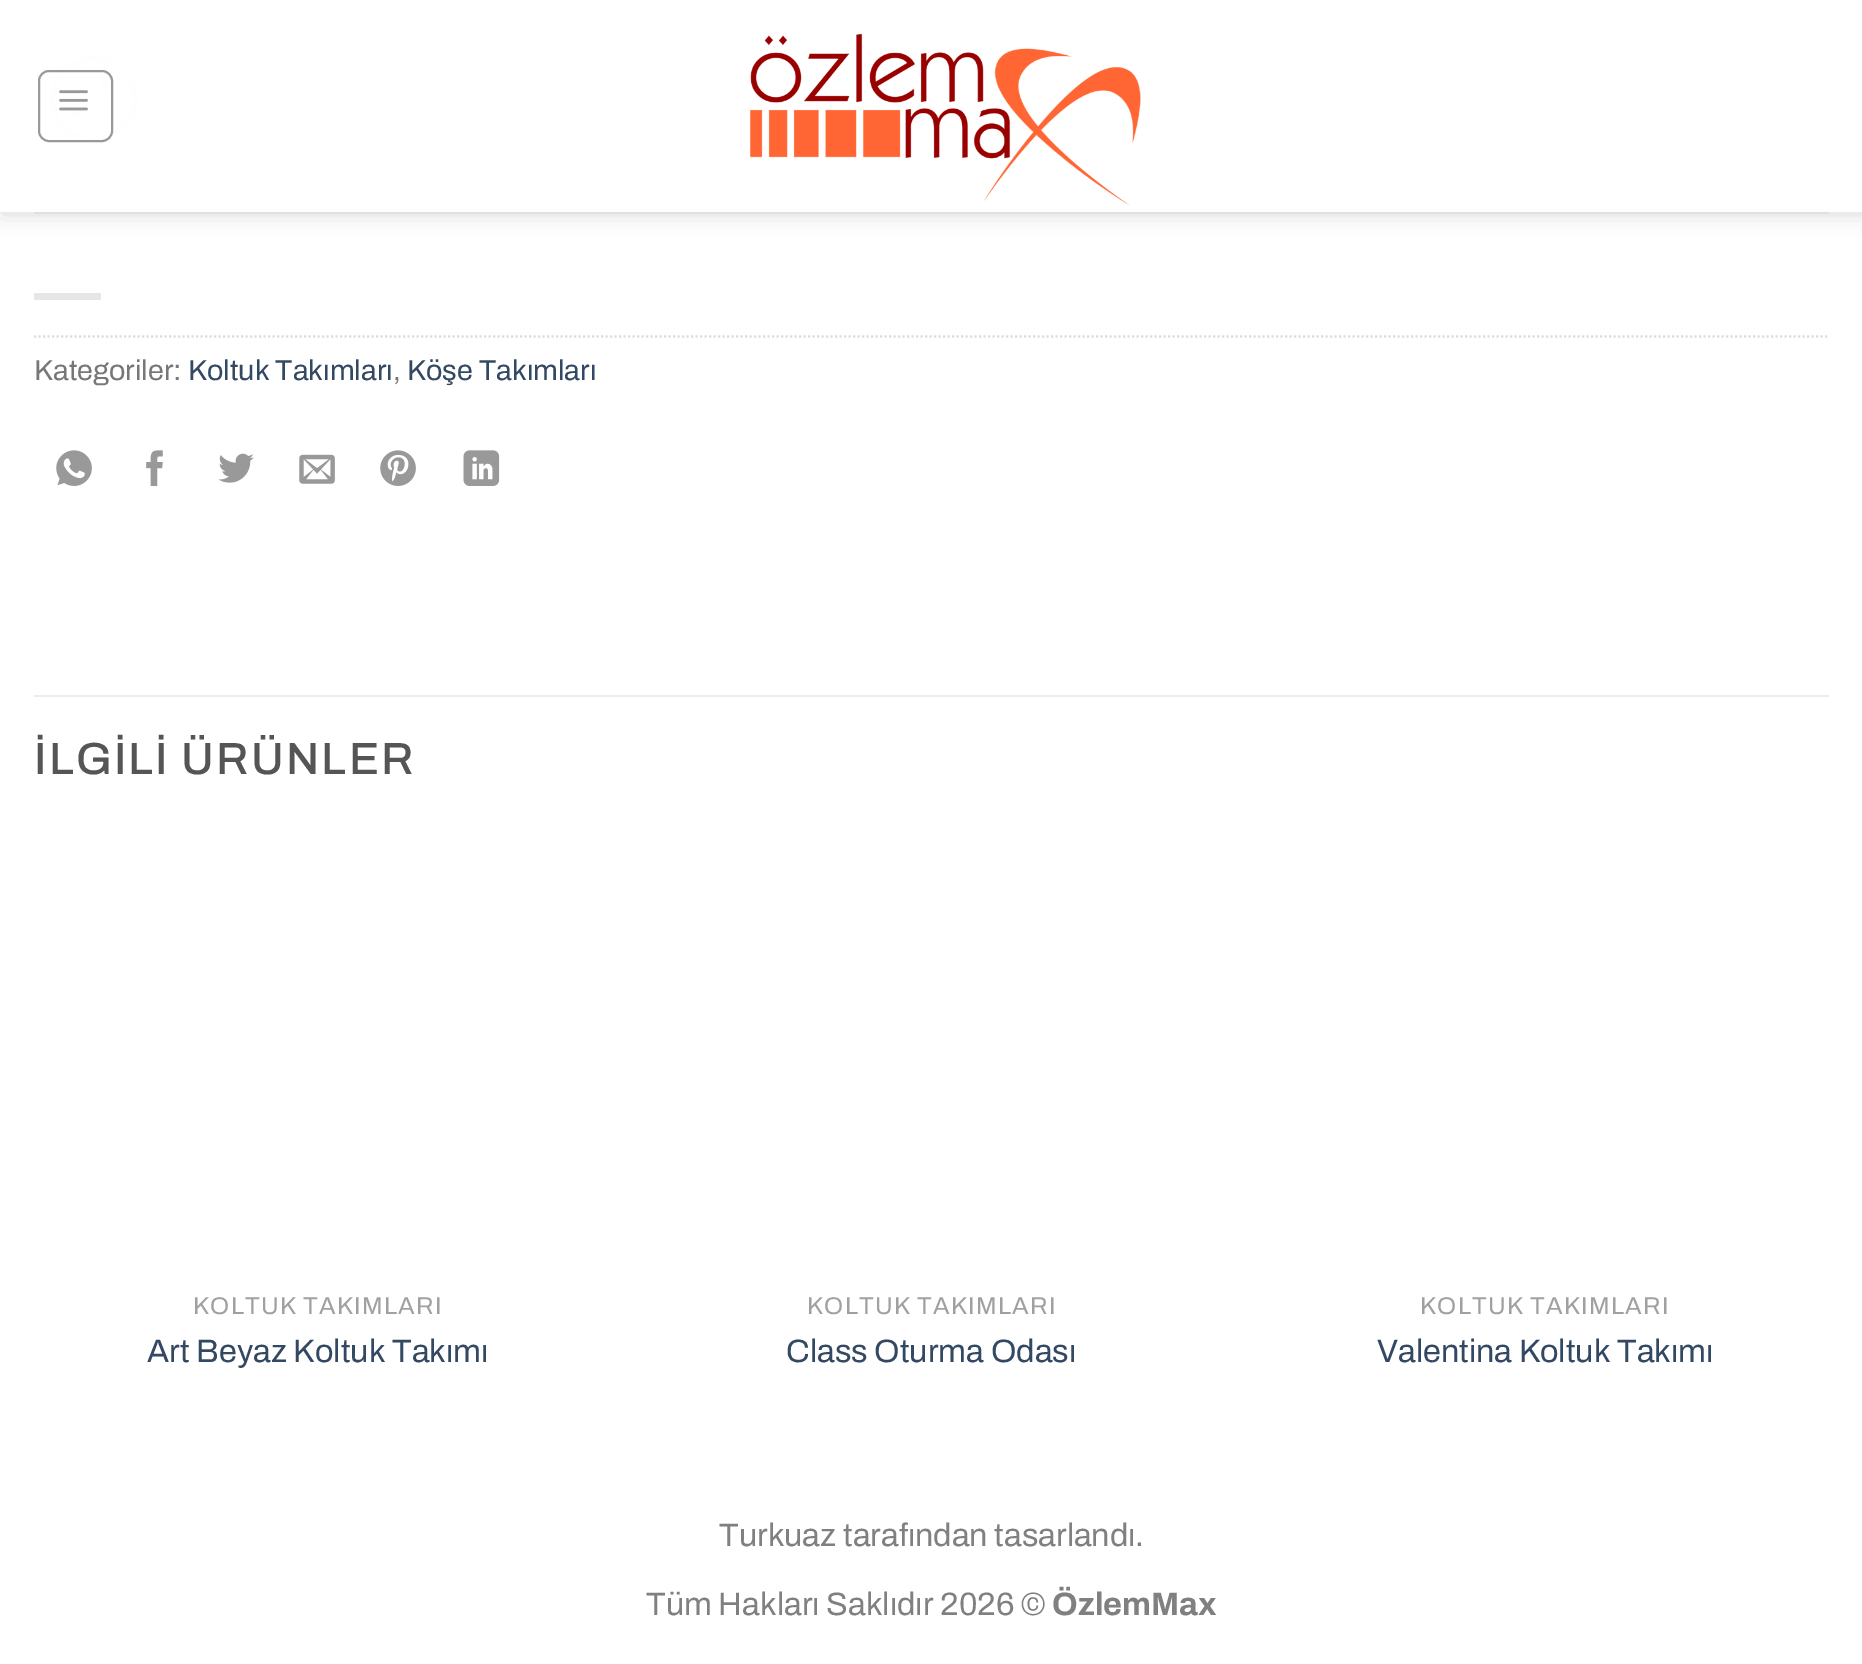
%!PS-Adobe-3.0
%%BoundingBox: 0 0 1862 1664
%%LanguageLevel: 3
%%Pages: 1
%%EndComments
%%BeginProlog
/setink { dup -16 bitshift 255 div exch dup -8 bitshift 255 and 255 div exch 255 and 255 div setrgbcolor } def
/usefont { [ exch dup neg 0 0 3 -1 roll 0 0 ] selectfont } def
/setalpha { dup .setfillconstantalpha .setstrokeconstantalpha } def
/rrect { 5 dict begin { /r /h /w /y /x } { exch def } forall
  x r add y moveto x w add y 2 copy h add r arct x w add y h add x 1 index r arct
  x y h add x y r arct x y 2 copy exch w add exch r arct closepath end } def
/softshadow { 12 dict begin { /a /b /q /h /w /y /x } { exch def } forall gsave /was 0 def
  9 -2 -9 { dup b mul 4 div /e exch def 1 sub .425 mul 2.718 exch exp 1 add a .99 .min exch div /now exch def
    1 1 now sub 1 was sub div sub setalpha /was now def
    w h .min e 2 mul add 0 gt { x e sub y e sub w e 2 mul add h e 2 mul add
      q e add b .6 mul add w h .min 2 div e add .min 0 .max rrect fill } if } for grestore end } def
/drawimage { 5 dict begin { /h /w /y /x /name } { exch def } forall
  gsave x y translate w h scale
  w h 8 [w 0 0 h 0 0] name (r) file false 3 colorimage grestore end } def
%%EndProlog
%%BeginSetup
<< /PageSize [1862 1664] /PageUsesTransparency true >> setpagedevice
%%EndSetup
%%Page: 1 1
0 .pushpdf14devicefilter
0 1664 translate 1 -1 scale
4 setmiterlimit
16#FFFFFF setink
0 0 1862 1664 rectfill
16#C0C0C0 setink
5 setlinewidth
52.5 58.5 82 81 40.5 rrect stroke
114 75 moveto 114 92 lineto 107 86 lineto 99 94 lineto 96 90 lineto 103 82 lineto 97 75 lineto closepath 90 103 moveto 82 111 lineto 89 117 lineto 72 117 lineto 72 100 lineto 79 107 lineto 86 99 lineto closepath fill
gsave
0 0 moveto 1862 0 lineto 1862 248 lineto 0 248 lineto closepath 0 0 moveto 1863 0 lineto 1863 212 lineto 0 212 lineto closepath eoclip newpath
16#000000 setink
2 2 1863 212 0 11 0.15 softshadow
grestore
0.9 setalpha
16#FFFFFF setink
0 56 1862 156 rectfill
50 56 87 86 rectfill
1 setalpha
16#999999 setink
2 setlinewidth
39 71 73 70 10 rrect stroke
(img1.raw) 59 90 29 21 drawimage
(img2.raw) 750 33 391 173 drawimage
0.1 setalpha
16#777777 setink
34 212 1795 2 rectfill
1 setalpha
16#E6E6E6 setink
34 293 67 7 rectfill
16#DDDDDD setink
2.2 setlinewidth
[2.25 2.25] 0 setdash
34 336.5 moveto 1829 336.5 lineto stroke
/Archivo-Regular 28.75 usefont
16#777777 setink
34 380 moveto (Kategoriler:) show
16#334862 setink
188 380 moveto (Koltuk Takımları) show
16#777777 setink
393 380 moveto (,) show
16#334862 setink
407 380 moveto (Köşe Takımları) show
(img3.raw) 56 450 36 36 drawimage
(img4.raw) 146 450 17 36 drawimage
(img5.raw) 218 453 36 30 drawimage
(img6.raw) 299 454 36 30 drawimage
(img7.raw) 380 450 36 36 drawimage
(img8.raw) 463 450 37 36 drawimage
16#ECECEC setink
34 695 1795 2 rectfill
/Archivo-Medium 45 usefont
16#555555 setink
34 774 moveto 2.25 0 (İLGİLİ ÜRÜNLER) ashow
/Archivo-Regular 24.25 usefont
16#A0A0A0 setink
193 1314 moveto 1.25 0 (KOLTUK TAKIMLARI) ashow
/Archivo-Regular 32.4 usefont
16#334862 setink
147 1362 moveto (Art Beyaz Koltuk Takımı) show
/Archivo-Regular 24.25 usefont
16#A0A0A0 setink
807 1314 moveto 1.25 0 (KOLTUK TAKIMLARI) ashow
/Archivo-Regular 32.4 usefont
16#334862 setink
786 1362 moveto (Class Oturma Odası) show
/Archivo-Regular 24.25 usefont
16#A0A0A0 setink
1420 1314 moveto 1.25 0 (KOLTUK TAKIMLARI) ashow
/Archivo-Regular 32.4 usefont
16#334862 setink
1377 1362 moveto (Valentina Koltuk Takımı) show
16#808080 setink
719 1546 moveto (Turkuaz tarafından tasarlandı.) show
646 1615 moveto (Tüm Hakları Saklıdır 2026 ©) show
/Archivo-Bold 32.4 usefont
1052 1615 moveto (ÖzlemMax) show
.poppdf14devicefilter showpage
%%EOF
